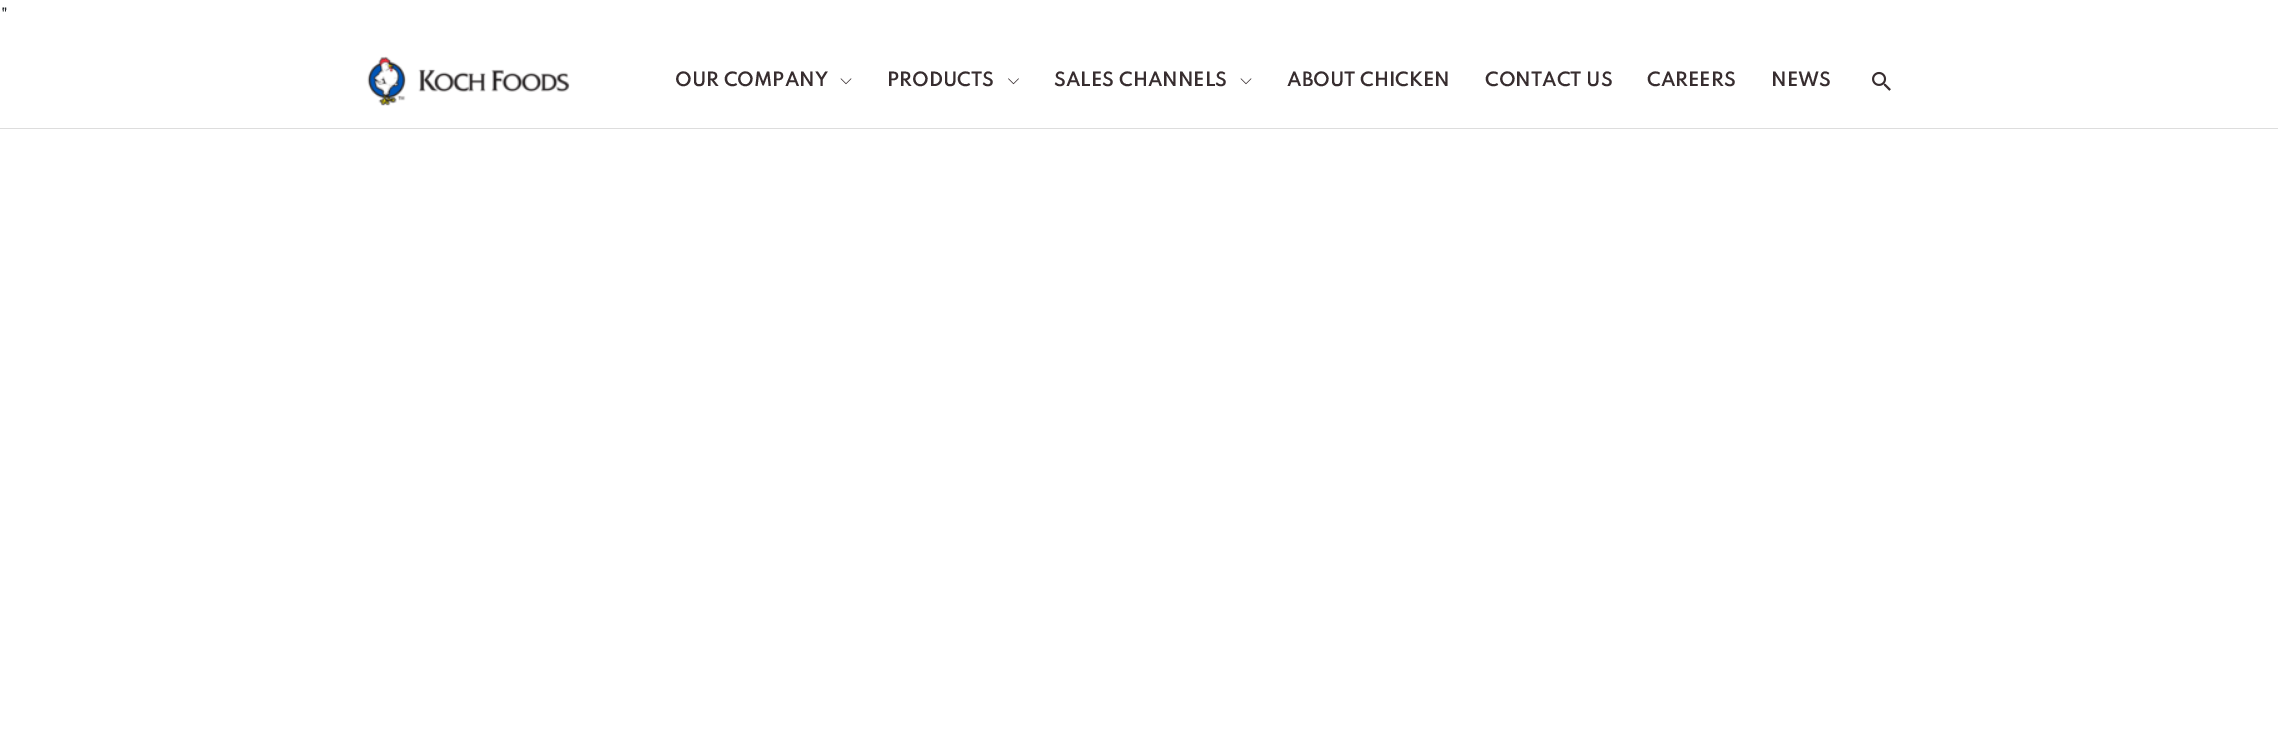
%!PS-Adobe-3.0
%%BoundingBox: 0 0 2278 738
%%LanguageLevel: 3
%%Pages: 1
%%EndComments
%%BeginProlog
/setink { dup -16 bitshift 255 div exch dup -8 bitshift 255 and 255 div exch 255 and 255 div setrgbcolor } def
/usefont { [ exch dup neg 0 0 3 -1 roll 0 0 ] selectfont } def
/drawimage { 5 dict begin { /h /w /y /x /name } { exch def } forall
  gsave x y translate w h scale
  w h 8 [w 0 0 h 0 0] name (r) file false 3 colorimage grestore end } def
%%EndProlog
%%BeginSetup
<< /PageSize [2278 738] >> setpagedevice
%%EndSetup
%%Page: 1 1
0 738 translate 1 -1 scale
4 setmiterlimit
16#FFFFFF setink
0 0 2278 738 rectfill
/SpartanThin-Regular 20 usefont
16#212529 setink
0 24 moveto (") show
16#DDDDDD setink
0 128 2278 1 rectfill
(img1.raw) 367 56 203 50 drawimage
/SpartanThin-SemiBold 17.5 usefont
16#372D2F setink
675 86 moveto (OUR COMPANY) show
(img2.raw) 840 78 12 7 drawimage
887 86 moveto (PRODUCTS) show
(img3.raw) 1008 78 11 7 drawimage
1054 86 moveto (SALES CHANNELS) show
(img2.raw) 1240 78 12 7 drawimage
[
    [(ABOUT CHICKEN) 1287 86]
    [(CONTACT US) 1485 86]
    [(CAREERS) 1647 86]
    [(NEWS) 1771 86]
] { aload pop moveto show } forall
(img4.raw) 1872 71 19 20 drawimage
showpage
%%EOF
